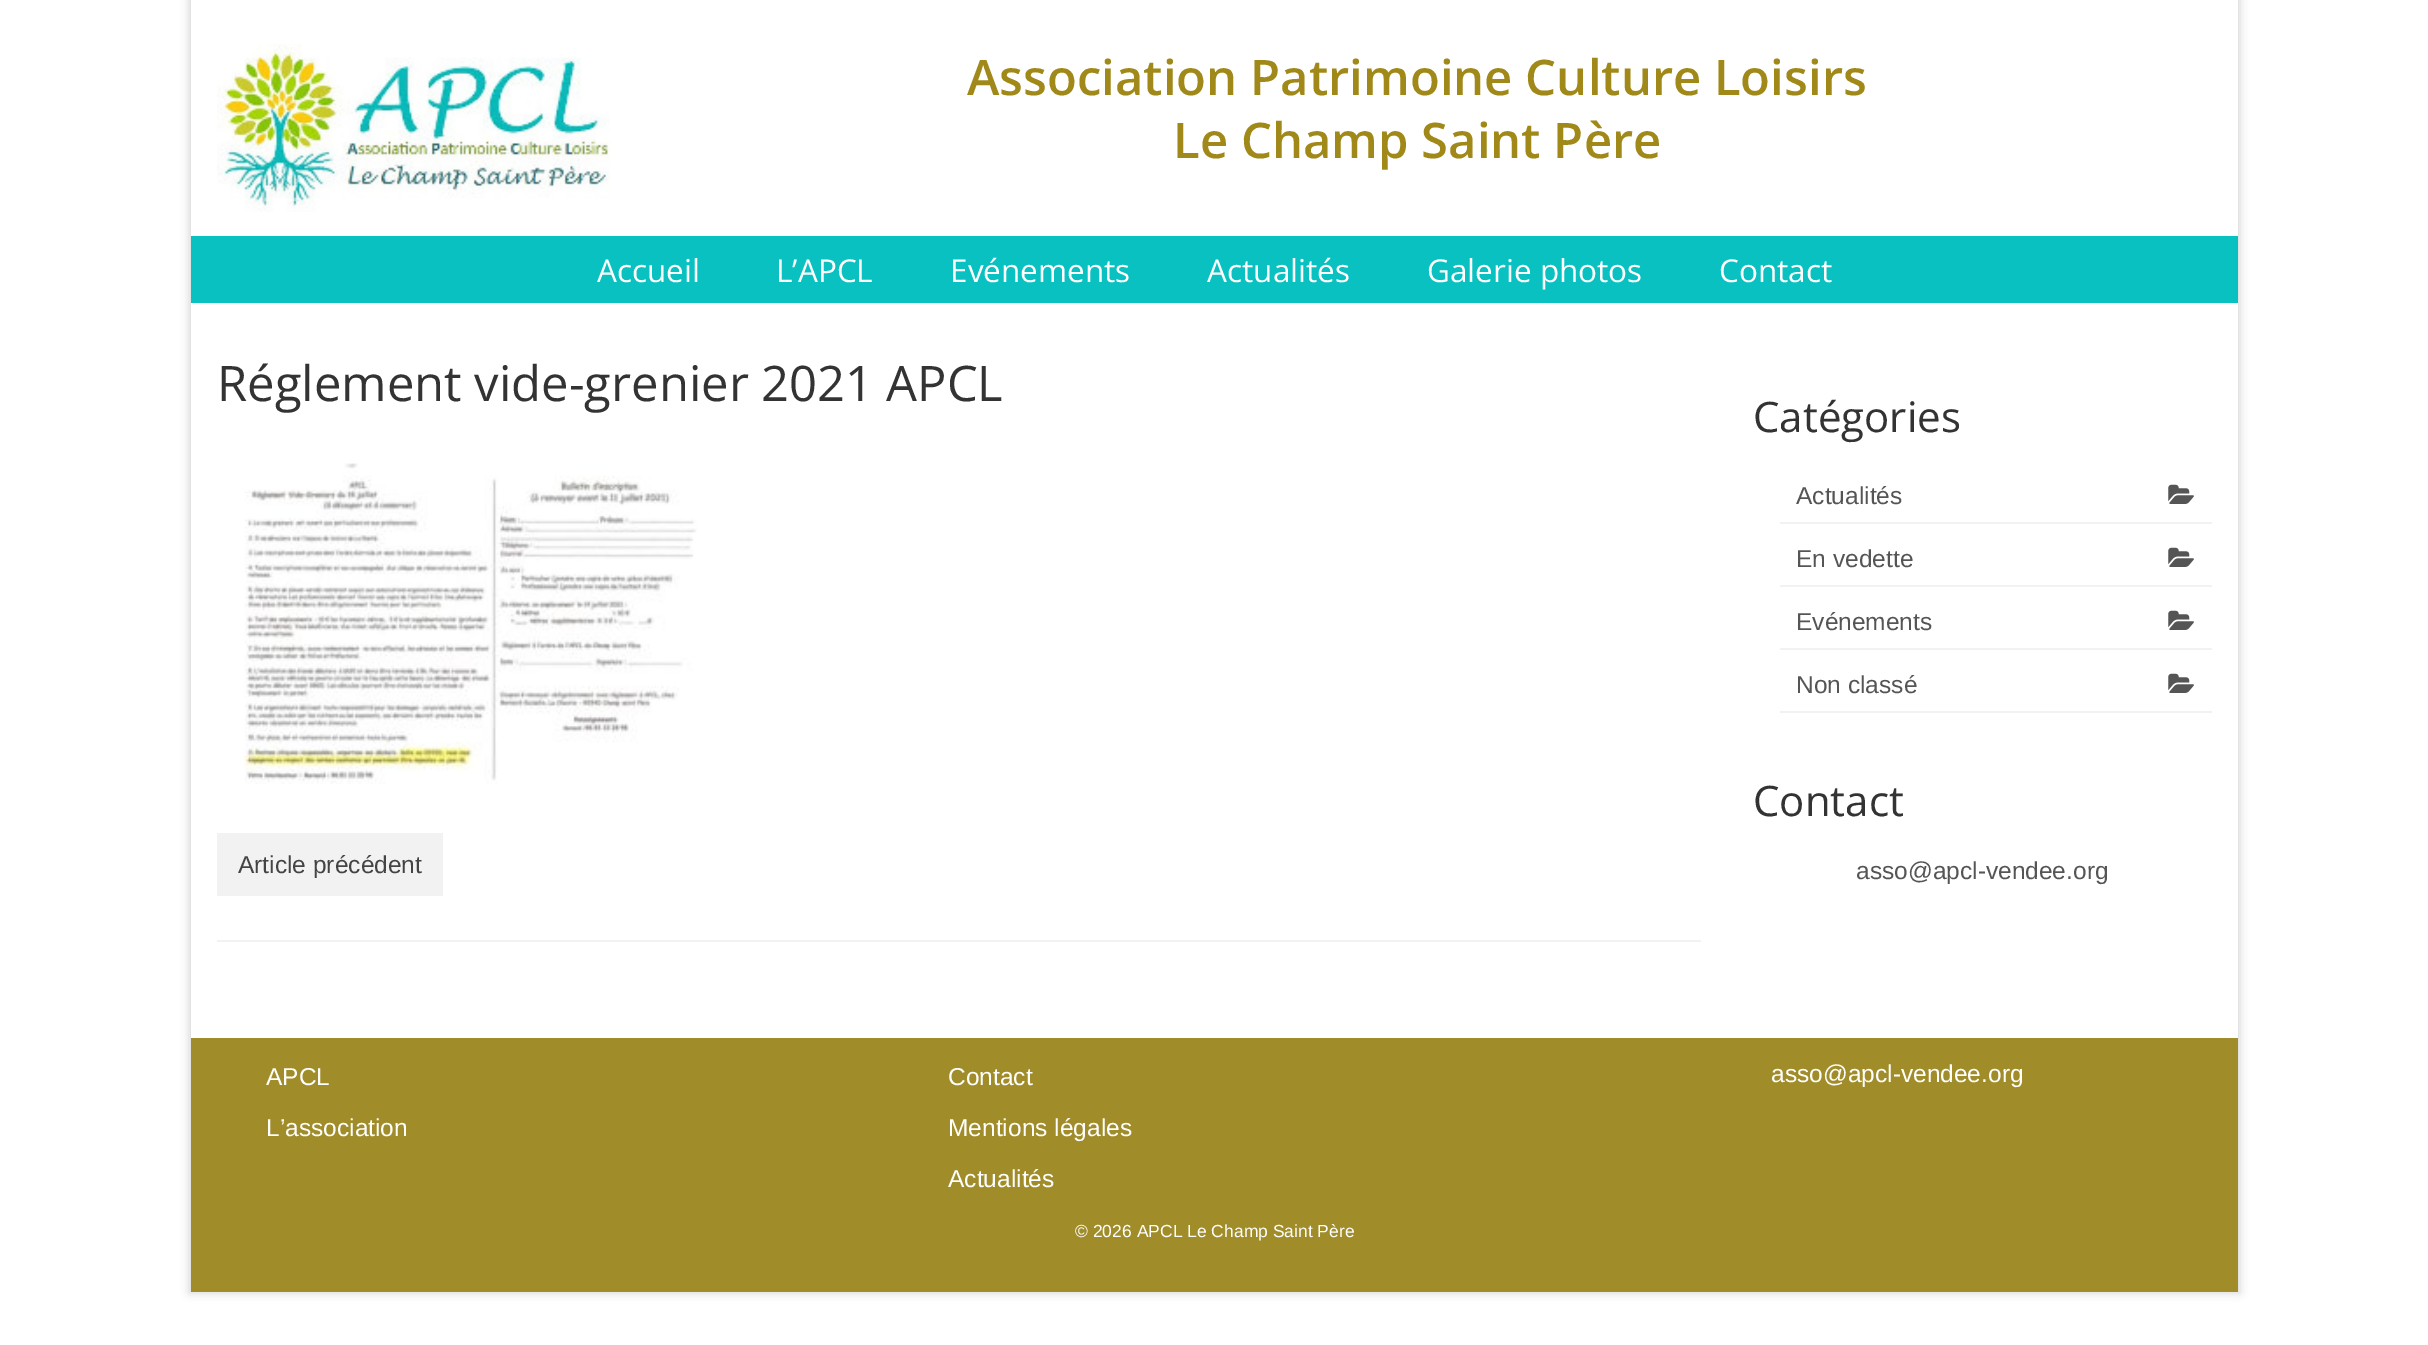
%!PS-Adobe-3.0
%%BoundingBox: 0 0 2428 1345
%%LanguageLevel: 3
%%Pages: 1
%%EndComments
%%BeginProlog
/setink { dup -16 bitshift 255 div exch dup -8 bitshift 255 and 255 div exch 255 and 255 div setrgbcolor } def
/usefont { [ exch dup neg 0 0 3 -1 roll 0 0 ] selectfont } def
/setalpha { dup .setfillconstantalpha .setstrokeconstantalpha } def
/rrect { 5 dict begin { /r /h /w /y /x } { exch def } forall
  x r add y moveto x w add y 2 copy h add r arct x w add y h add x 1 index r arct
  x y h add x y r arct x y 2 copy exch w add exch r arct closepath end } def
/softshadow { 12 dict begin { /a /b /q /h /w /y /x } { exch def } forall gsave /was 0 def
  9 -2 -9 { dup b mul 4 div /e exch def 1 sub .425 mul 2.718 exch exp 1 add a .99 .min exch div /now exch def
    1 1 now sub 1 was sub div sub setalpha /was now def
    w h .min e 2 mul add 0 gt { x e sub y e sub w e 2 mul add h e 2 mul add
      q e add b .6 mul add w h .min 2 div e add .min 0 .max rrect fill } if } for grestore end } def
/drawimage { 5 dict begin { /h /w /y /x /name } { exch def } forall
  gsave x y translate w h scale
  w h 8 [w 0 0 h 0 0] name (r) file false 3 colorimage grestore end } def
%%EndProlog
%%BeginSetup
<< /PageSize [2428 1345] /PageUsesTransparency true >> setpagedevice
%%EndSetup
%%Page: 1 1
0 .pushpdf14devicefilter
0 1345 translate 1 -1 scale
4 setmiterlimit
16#FFFFFF setink
0 0 2428 1345 rectfill
gsave
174 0 moveto 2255 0 lineto 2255 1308 lineto 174 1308 lineto closepath 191 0 moveto 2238 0 lineto 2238 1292 lineto 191 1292 lineto closepath eoclip newpath
16#000000 setink
189 -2 2051 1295 0 4.5 0.16 softshadow
grestore
(img1.raw) 217 44 393 168 drawimage
/OpenSans-SemiBold 49 usefont
16#A08918 setink
967 95 moveto (Association Patrimoine Culture Loisirs) show
1173 158 moveto (Le Champ Saint Père) show
16#09C1C1 setink
191 236 2047 67 rectfill
/OpenSans-Regular 31.5 usefont
16#FFFFFF setink
[
    [(Accueil) 597 282]
    [(L’APCL) 776 282]
    [(Evénements) 950 282]
    [(Actualités) 1207 282]
    [(Galerie photos) 1427 282]
    [(Contact) 1719 282]
] { aload pop moveto show } forall
/OpenSans-Regular 49 usefont
16#333333 setink
217 401 moveto (Réglement vide-grenier 2021 APCL) show
(img2.raw) 243 463 454 321 drawimage
16#F2F2F2 setink
217 940 1484 2 rectfill
217 833 226 63 rectfill
/LiberationSans-Regular 24.5 usefont
16#444444 setink
238 873 moveto (Article précédent) show
/OpenSans-Regular 42 usefont
16#333333 setink
1753 432 moveto (Catégories) show
16#F2F2F2 setink
1780 522 432 2 rectfill
/LiberationSans-Regular 24.5 usefont
16#555555 setink
1796 504 moveto (Actualités) show
(img3.raw) 2168 484 26 20 drawimage
16#F2F2F2 setink
1780 585 432 2 rectfill
16#555555 setink
1796 567 moveto (En vedette) show
(img3.raw) 2168 547 26 20 drawimage
16#F2F2F2 setink
1780 648 432 2 rectfill
16#555555 setink
1796 630 moveto (Evénements) show
(img3.raw) 2168 610 26 20 drawimage
16#F2F2F2 setink
1780 711 432 2 rectfill
16#555555 setink
1796 693 moveto (Non classé) show
(img3.raw) 2168 673 26 20 drawimage
/OpenSans-Regular 42 usefont
16#333333 setink
1753 816 moveto (Contact) show
/LiberationSans-Regular 24.5 usefont
16#555555 setink
1856 879 moveto (asso@apcl-vendee.org) show
16#A08C28 setink
191 1038 2047 254 rectfill
16#FFFFFF setink
[
    [(APCL) 266 1085]
    [(L’association) 266 1136]
    [(Contact) 948 1085]
    [(Mentions légales) 948 1136]
    [(Actualités) 948 1187]
    [(asso@apcl-vendee.org) 1771 1082]
] { aload pop moveto show } forall
/LiberationSans-Regular 17.5 usefont
1075 1237 moveto (© 2026 APCL Le Champ Saint Père) show
.poppdf14devicefilter showpage
%%EOF
